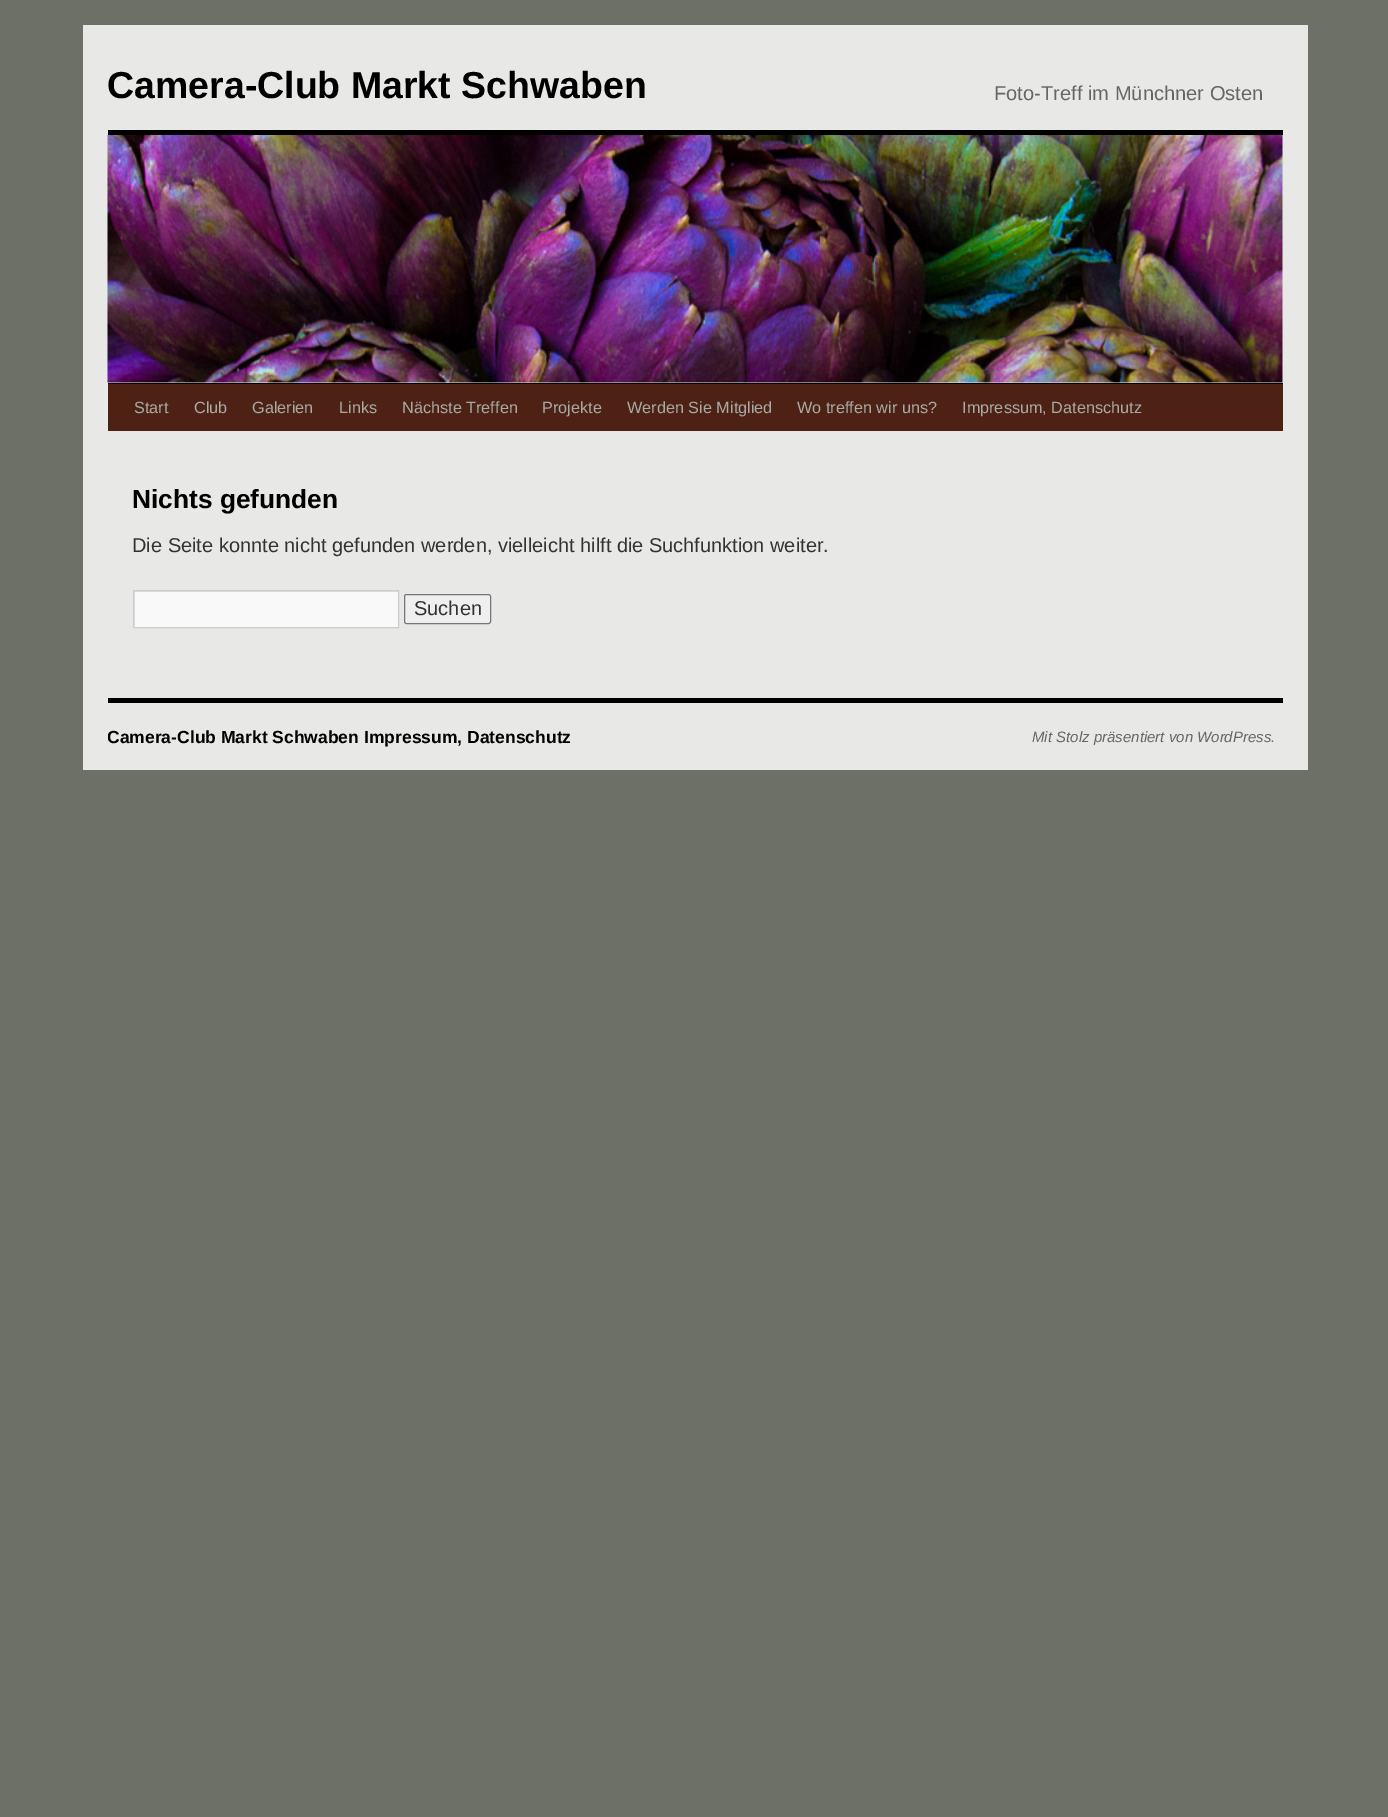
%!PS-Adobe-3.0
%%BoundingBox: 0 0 1388 1817
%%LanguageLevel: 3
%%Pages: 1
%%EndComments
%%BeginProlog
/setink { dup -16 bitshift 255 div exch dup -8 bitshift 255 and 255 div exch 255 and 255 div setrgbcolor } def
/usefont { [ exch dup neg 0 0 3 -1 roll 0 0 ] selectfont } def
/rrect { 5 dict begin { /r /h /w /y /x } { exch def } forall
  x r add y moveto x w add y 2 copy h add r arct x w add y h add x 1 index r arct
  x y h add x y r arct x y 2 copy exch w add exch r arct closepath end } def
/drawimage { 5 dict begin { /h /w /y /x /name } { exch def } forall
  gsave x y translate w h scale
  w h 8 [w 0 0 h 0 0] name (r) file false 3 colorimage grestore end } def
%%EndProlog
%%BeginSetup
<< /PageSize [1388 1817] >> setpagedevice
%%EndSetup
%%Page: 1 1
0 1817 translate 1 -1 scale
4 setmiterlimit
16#6C7066 setink
0 0 1388 1817 rectfill
16#E8E8E6 setink
83 25 1225 745 rectfill
/LiberationSans-Bold 37.5 usefont
16#000000 setink
107 98 moveto (Camera-Club Markt Schwaben) show
/LiberationSans-Regular 20.1 usefont
16#666666 setink
994 100 moveto (Foto-Treff im Münchner Osten) show
16#000000 setink
108 130 1175 5 rectfill
108 383 1175 1 rectfill
(img1.raw) 107 135 1176 248 drawimage
16#4D2214 setink
108 384 1175 47 rectfill
/LiberationSans-Regular 16.25 usefont
16#AAAAAA setink
[
    [(Start) 134 413]
    [(Club) 194 413]
    [(Galerien) 252 413]
    [(Links) 339 413]
    [(Nächste Treffen) 402 413]
    [(Projekte) 542 413]
    [(Werden Sie Mitglied) 627 413]
    [(Wo treffen wir uns?) 797 413]
    [(Impressum, Datenschutz) 962 413]
] { aload pop moveto show } forall
/LiberationSans-Bold 26.25 usefont
16#000000 setink
132 508 moveto (Nichts gefunden) show
/LiberationSans-Regular 20 usefont
16#333333 setink
132 552 moveto (Die Seite konnte nicht gefunden werden, vielleicht hilft die Suchfunktion weiter.) show
16#F9F9F9 setink
134 592 264 35 rectfill
gsave
134 591 264 35 rectclip
16#E0E0E0 setink
10 468 moveto 521 468 lineto 521 750 lineto 10 750 lineto closepath 135 592 moveto 399 592 lineto 399 628 lineto 135 628 lineto closepath eofill
grestore
16#CCCCCC setink
133.5 590.5 265 37 rectstroke
16#EFEFEF setink
404.5 594.5 86 29 2 rrect gsave fill grestore
16#767676 setink
stroke
16#333333 setink
414 615 moveto (Suchen) show
16#000000 setink
108 698 1175 5 rectfill
gsave
108 703 1175 67 rectclip
/LiberationSans-Bold 17.5 usefont
107 743 moveto (Camera-Club Markt Schwaben) show
grestore
/LiberationSans-Bold 17.5 usefont
364 743 moveto (Impressum, Datenschutz) show
/LiberationSans-Italic 15 usefont
16#666666 setink
1032 742 moveto (Mit Stolz präsentiert von WordPress.) show
showpage
%%EOF
